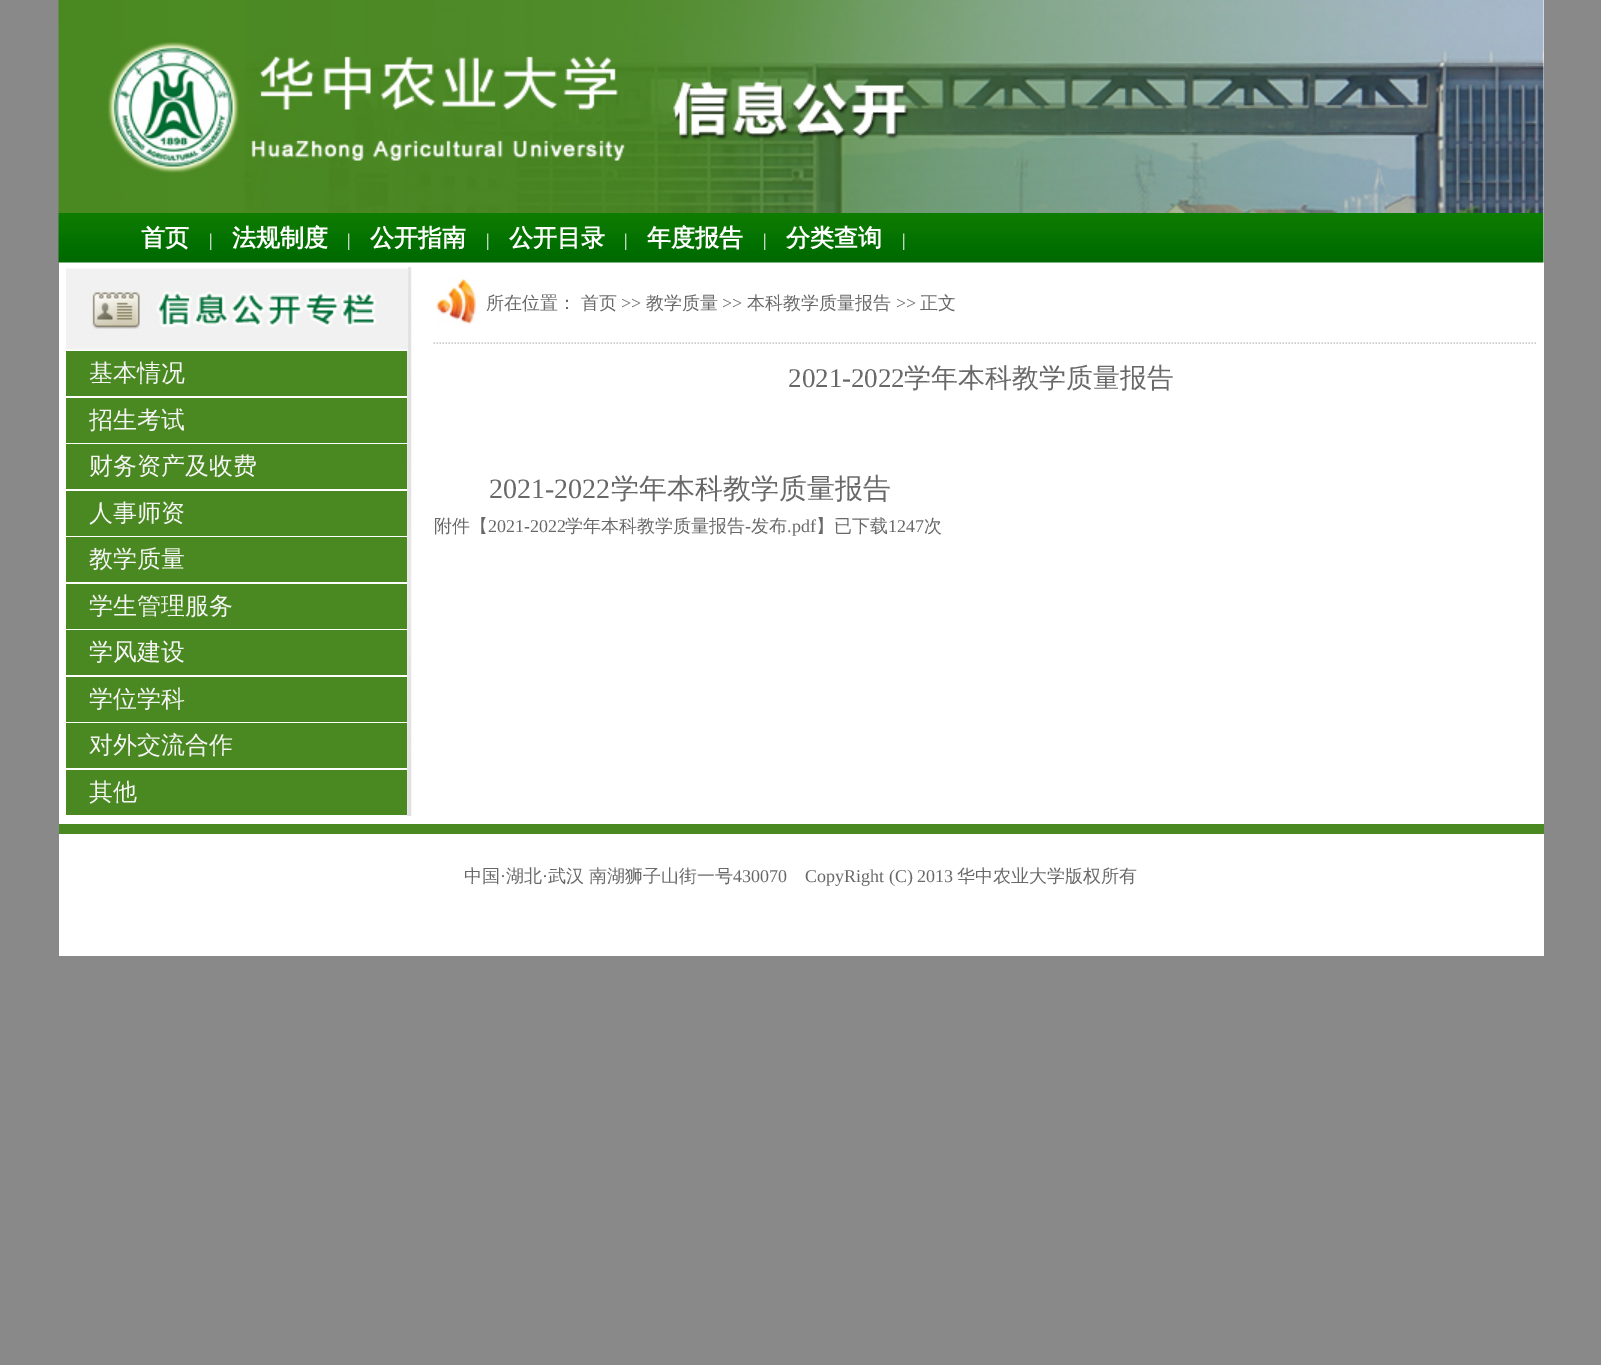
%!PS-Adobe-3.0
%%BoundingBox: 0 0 1601 1365
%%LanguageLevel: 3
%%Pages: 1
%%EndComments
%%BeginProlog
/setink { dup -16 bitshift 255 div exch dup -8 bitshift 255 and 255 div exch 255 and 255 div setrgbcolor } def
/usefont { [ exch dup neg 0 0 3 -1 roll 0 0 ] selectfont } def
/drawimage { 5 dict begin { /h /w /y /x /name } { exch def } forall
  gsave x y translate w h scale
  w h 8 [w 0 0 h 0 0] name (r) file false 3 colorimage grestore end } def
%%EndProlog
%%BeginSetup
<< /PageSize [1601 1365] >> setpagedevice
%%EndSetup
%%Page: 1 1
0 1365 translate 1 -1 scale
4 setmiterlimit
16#8A8989 setink
0 0 1601 1365 rectfill
16#FFFFFF setink
59 0 1485 956 rectfill
(img1.raw) 58 0 1486 213 drawimage
(img2.raw) 58 213 1486 50 drawimage
/WenQuanYiZenHei-Bold 24 usefont
141 246 moveto (首页) show
/LiberationSerif-Regular 18 usefont
209 246 moveto (|) show
/WenQuanYiZenHei-Bold 24 usefont
232 246 moveto (法规制度) show
/LiberationSerif-Regular 18 usefont
347 246 moveto (|) show
/WenQuanYiZenHei-Bold 24 usefont
370 246 moveto (公开指南) show
/LiberationSerif-Regular 18 usefont
486 246 moveto (|) show
/WenQuanYiZenHei-Bold 24 usefont
509 246 moveto (公开目录) show
/LiberationSerif-Regular 18 usefont
624 246 moveto (|) show
/WenQuanYiZenHei-Bold 24 usefont
647 246 moveto (年度报告) show
/LiberationSerif-Regular 18 usefont
763 246 moveto (|) show
/WenQuanYiZenHei-Bold 24 usefont
786 246 moveto (分类查询) show
/LiberationSerif-Regular 18 usefont
902 246 moveto (|) show
(img3.raw) 407 267 5 549 drawimage
(img4.raw) 66 267 342 84 drawimage
16#4A8921 setink
66 351 341 45 rectfill
/WenQuanYiZenHei-Medium 24 usefont
16#F6F6F6 setink
89 381 moveto (基本情况) show
16#4A8921 setink
66 398 341 45 rectfill
16#F6F6F6 setink
89 428 moveto (招生考试) show
16#4A8921 setink
66 444 341 45 rectfill
16#F6F6F6 setink
89 474 moveto (财务资产及收费) show
16#4A8921 setink
66 491 341 45 rectfill
16#F6F6F6 setink
89 521 moveto (人事师资) show
16#4A8921 setink
66 537 341 45 rectfill
16#F6F6F6 setink
89 567 moveto (教学质量) show
16#4A8921 setink
66 584 341 45 rectfill
16#F6F6F6 setink
89 614 moveto (学生管理服务) show
16#4A8921 setink
66 630 341 45 rectfill
16#F6F6F6 setink
89 660 moveto (学风建设) show
16#4A8921 setink
66 677 341 45 rectfill
16#F6F6F6 setink
89 707 moveto (学位学科) show
16#4A8921 setink
66 723 341 45 rectfill
16#F6F6F6 setink
89 753 moveto (对外交流合作) show
16#4A8921 setink
66 770 341 45 rectfill
16#F6F6F6 setink
89 800 moveto (其他) show
(img5.raw) 436 278 40 47 drawimage
16#CCCCCC setink
1.5 setlinewidth
[1.5 1.5] 0 setdash
433.5 343 moveto 1536 343 lineto stroke
/WenQuanYiZenHei-Medium 18 usefont
16#686868 setink
486 309 moveto (所在位置：) show
581 309 moveto (首页) show
/LiberationSerif-Regular 18 usefont
621 309 moveto (>>) show
/WenQuanYiZenHei-Medium 18 usefont
646 309 moveto (教学质量) show
/LiberationSerif-Regular 18 usefont
722 309 moveto (>>) show
/WenQuanYiZenHei-Medium 18 usefont
747 309 moveto (本科教学质量报告) show
/LiberationSerif-Regular 18 usefont
896 309 moveto (>>) show
/WenQuanYiZenHei-Medium 18 usefont
920 309 moveto (正文) show
/LiberationSerif-Regular 27 usefont
788 387 moveto (2021-2022) show
/WenQuanYiZenHei-Medium 27 usefont
904 387 moveto (学年本科教学质量报告) show
/LiberationSerif-Regular 28 usefont
489 498 moveto (2021-2022) show
/WenQuanYiZenHei-Medium 28 usefont
611 498 moveto (学年本科教学质量报告) show
/WenQuanYiZenHei-Medium 18 usefont
434 532 moveto (附件【) show
/LiberationSerif-Regular 18 usefont
488 532 moveto (2021-2022) show
/WenQuanYiZenHei-Medium 18 usefont
565 532 moveto (学年本科教学质量报告) show
/LiberationSerif-Regular 18 usefont
745 532 moveto (-) show
/WenQuanYiZenHei-Medium 18 usefont
751 532 moveto (发布) show
/LiberationSerif-Regular 18 usefont
787 532 moveto (.pdf) show
/WenQuanYiZenHei-Medium 18 usefont
816 532 moveto (】已下载) show
/LiberationSerif-Regular 18 usefont
888 532 moveto (1247) show
/WenQuanYiZenHei-Medium 18 usefont
924 532 moveto (次) show
16#4A8921 setink
59 824 1485 10 rectfill
16#686868 setink
464 882 moveto (中国) show
/LiberationSerif-Regular 18 usefont
500 882 moveto (·) show
/WenQuanYiZenHei-Medium 18 usefont
506 882 moveto (湖北) show
/LiberationSerif-Regular 18 usefont
542 882 moveto (·) show
/WenQuanYiZenHei-Medium 18 usefont
548 882 moveto (武汉) show
589 882 moveto (南湖狮子山街一号) show
/LiberationSerif-Regular 18 usefont
733 882 moveto (430070    CopyRight \(C\) 2013) show
/WenQuanYiZenHei-Medium 18 usefont
957 882 moveto (华中农业大学版权所有) show
showpage
%%EOF
